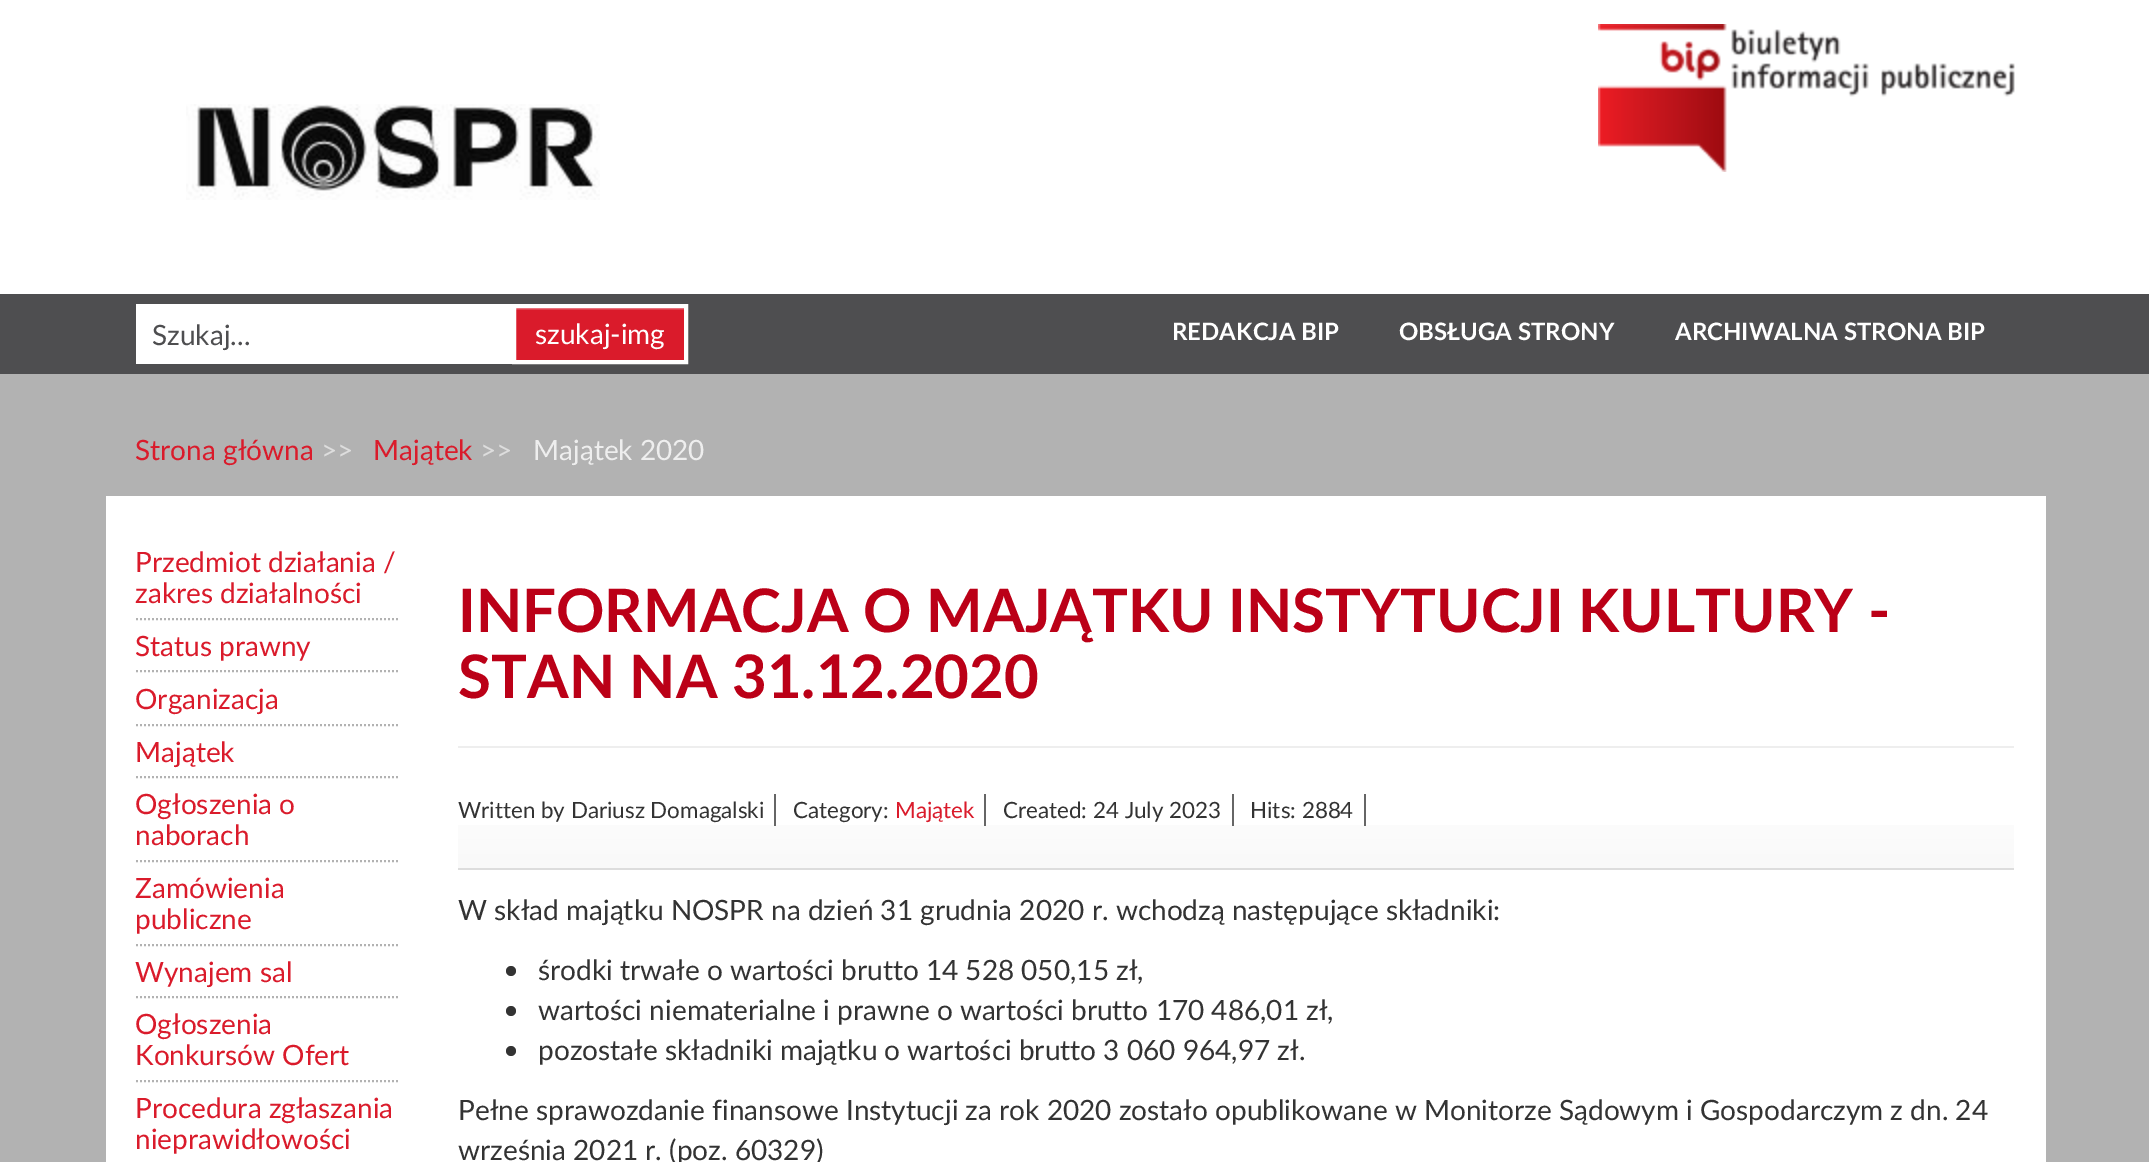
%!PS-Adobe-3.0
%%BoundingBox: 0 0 2149 1162
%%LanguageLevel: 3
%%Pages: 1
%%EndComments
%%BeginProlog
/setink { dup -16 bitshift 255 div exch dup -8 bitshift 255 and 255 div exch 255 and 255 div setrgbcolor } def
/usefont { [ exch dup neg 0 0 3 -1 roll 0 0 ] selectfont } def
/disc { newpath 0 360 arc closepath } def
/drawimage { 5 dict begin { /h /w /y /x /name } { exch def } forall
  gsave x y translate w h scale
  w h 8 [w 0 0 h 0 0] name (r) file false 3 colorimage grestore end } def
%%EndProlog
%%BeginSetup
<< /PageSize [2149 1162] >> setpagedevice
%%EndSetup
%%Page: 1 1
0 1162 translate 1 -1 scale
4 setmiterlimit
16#B2B2B2 setink
0 0 2149 1162 rectfill
16#FFFFFF setink
0 0 2149 294 rectfill
(img1.raw) 186 104 414 96 drawimage
(img2.raw) 1598 24 417 148 drawimage
16#4E4E50 setink
0 294 2149 80 rectfill
16#FFFFFF setink
136 304 376 60 rectfill
/Lato-Regular 28 usefont
16#4E4E50 setink
152 345 moveto (Szukaj...) show
16#DA1B2B setink
516 310 168 50 rectfill
16#E03D4B setink
516 308 168 2 rectfill
16#FFFFFF setink
4 setlinewidth
514 306 172 56 rectstroke
535 344 moveto (szukaj-img) show
/Lato-Bold 24 usefont
[
    [(REDAKCJA BIP) 1172 340]
    [(OBSŁUGA STRONY) 1399 340]
    [(ARCHIWALNA STRONA BIP) 1675 340]
] { aload pop moveto show } forall
/Lato-Regular 28 usefont
16#DA1B2B setink
135 460 moveto (Strona główna) show
16#DDDDDD setink
321 460 moveto (>>) show
16#DA1B2B setink
373 460 moveto (Majątek) show
16#DDDDDD setink
480 460 moveto (>>) show
16#EEEEEE setink
533 460 moveto (Majątek 2020) show
16#FFFFFF setink
106 496 1940 666 rectfill
16#DA1B2B setink
135 572 moveto (Przedmiot działania /) show
135 603 moveto (zakres działalności) show
16#B2B2B2 setink
2 setlinewidth
[2 2] 0 setdash
136 619 moveto 398 619 lineto stroke
16#DA1B2B setink
135 656 moveto (Status prawny) show
16#B2B2B2 setink
136 671 moveto 398 671 lineto stroke
16#DA1B2B setink
135 709 moveto (Organizacja) show
16#B2B2B2 setink
136 725 moveto 398 725 lineto stroke
16#DA1B2B setink
135 762 moveto (Majątek) show
16#B2B2B2 setink
136 777 moveto 398 777 lineto stroke
16#DA1B2B setink
135 814 moveto (Ogłoszenia o) show
135 845 moveto (naborach) show
16#B2B2B2 setink
136 861 moveto 398 861 lineto stroke
16#DA1B2B setink
135 898 moveto (Zamówienia) show
135 929 moveto (publiczne) show
16#B2B2B2 setink
136 945 moveto 398 945 lineto stroke
16#DA1B2B setink
135 982 moveto (Wynajem sal) show
16#B2B2B2 setink
136 997 moveto 398 997 lineto stroke
16#DA1B2B setink
135 1034 moveto (Ogłoszenia) show
135 1065 moveto (Konkursów Ofert) show
16#B2B2B2 setink
136 1081 moveto 398 1081 lineto stroke
16#DA1B2B setink
135 1118 moveto (Procedura zgłaszania) show
135 1149 moveto (nieprawidłowości) show
16#EEEEEE setink
458 746 1556 2 rectfill
/Lato-Bold 60 usefont
16#BB0017 setink
458 632 moveto (INFORMACJA O MAJĄTKU INSTYTUCJI KULTURY -) show
458 698 moveto (STAN NA 31.12.2020) show
gsave 458 825 moveto 2014 825 lineto 2014 868 lineto 458 868 lineto closepath clip newpath
<< /ShadingType 2 /ColorSpace /DeviceRGB /Coords [1236 788 1236 868] /Extend [true true] /Function << /FunctionType 3 /Domain [0 1] /Functions [<< /FunctionType 2 /Domain [0 1] /C0 [1 1 1] /C1 [1 1 1] /N 1 >> << /FunctionType 2 /Domain [0 1] /C0 [1 1 1] /C1 [0.976 0.976 0.976] /N 1 >>] /Bounds [0.08] /Encode [0 1 0 1] >> >> shfill grestore
16#DDDDDD setink
458 868 1556 2 rectfill
16#666666 setink
774 794 2 32 rectfill
/Lato-Regular 22.4 usefont
16#333333 setink
458 818 moveto (Written by Dariusz Domagalski) show
16#666666 setink
984 794 2 32 rectfill
16#333333 setink
793 818 moveto (Category:) show
16#DA1B2B setink
895 818 moveto (Majątek) show
16#666666 setink
1232 794 2 32 rectfill
16#333333 setink
1003 818 moveto (Created: 24 July 2023) show
16#666666 setink
1364 794 2 32 rectfill
16#333333 setink
1250 818 moveto (Hits: 2884) show
/Lato-Regular 28 usefont
458 920 moveto (W skład majątku NOSPR na dzień 31 grudnia 2020 r. wchodzą następujące składniki:) show
511 971 5 disc fill
538 980 moveto (środki trwałe o wartości brutto 14 528 050,15 zł,) show
511 1011 5 disc fill
538 1020 moveto (wartości niematerialne i prawne o wartości brutto 170 486,01 zł,) show
511 1051 5 disc fill
[
    [(pozostałe składniki majątku o wartości brutto 3 060 964,97 zł.) 538 1060]
    [(Pełne sprawozdanie finansowe Instytucji za rok 2020 zostało opublikowane w Monitorze Sądowym i Gospodarczym z dn. 24) 458 1120]
    [(września 2021 r. \(poz. 60329\)) 458 1160]
] { aload pop moveto show } forall
showpage
%%EOF
